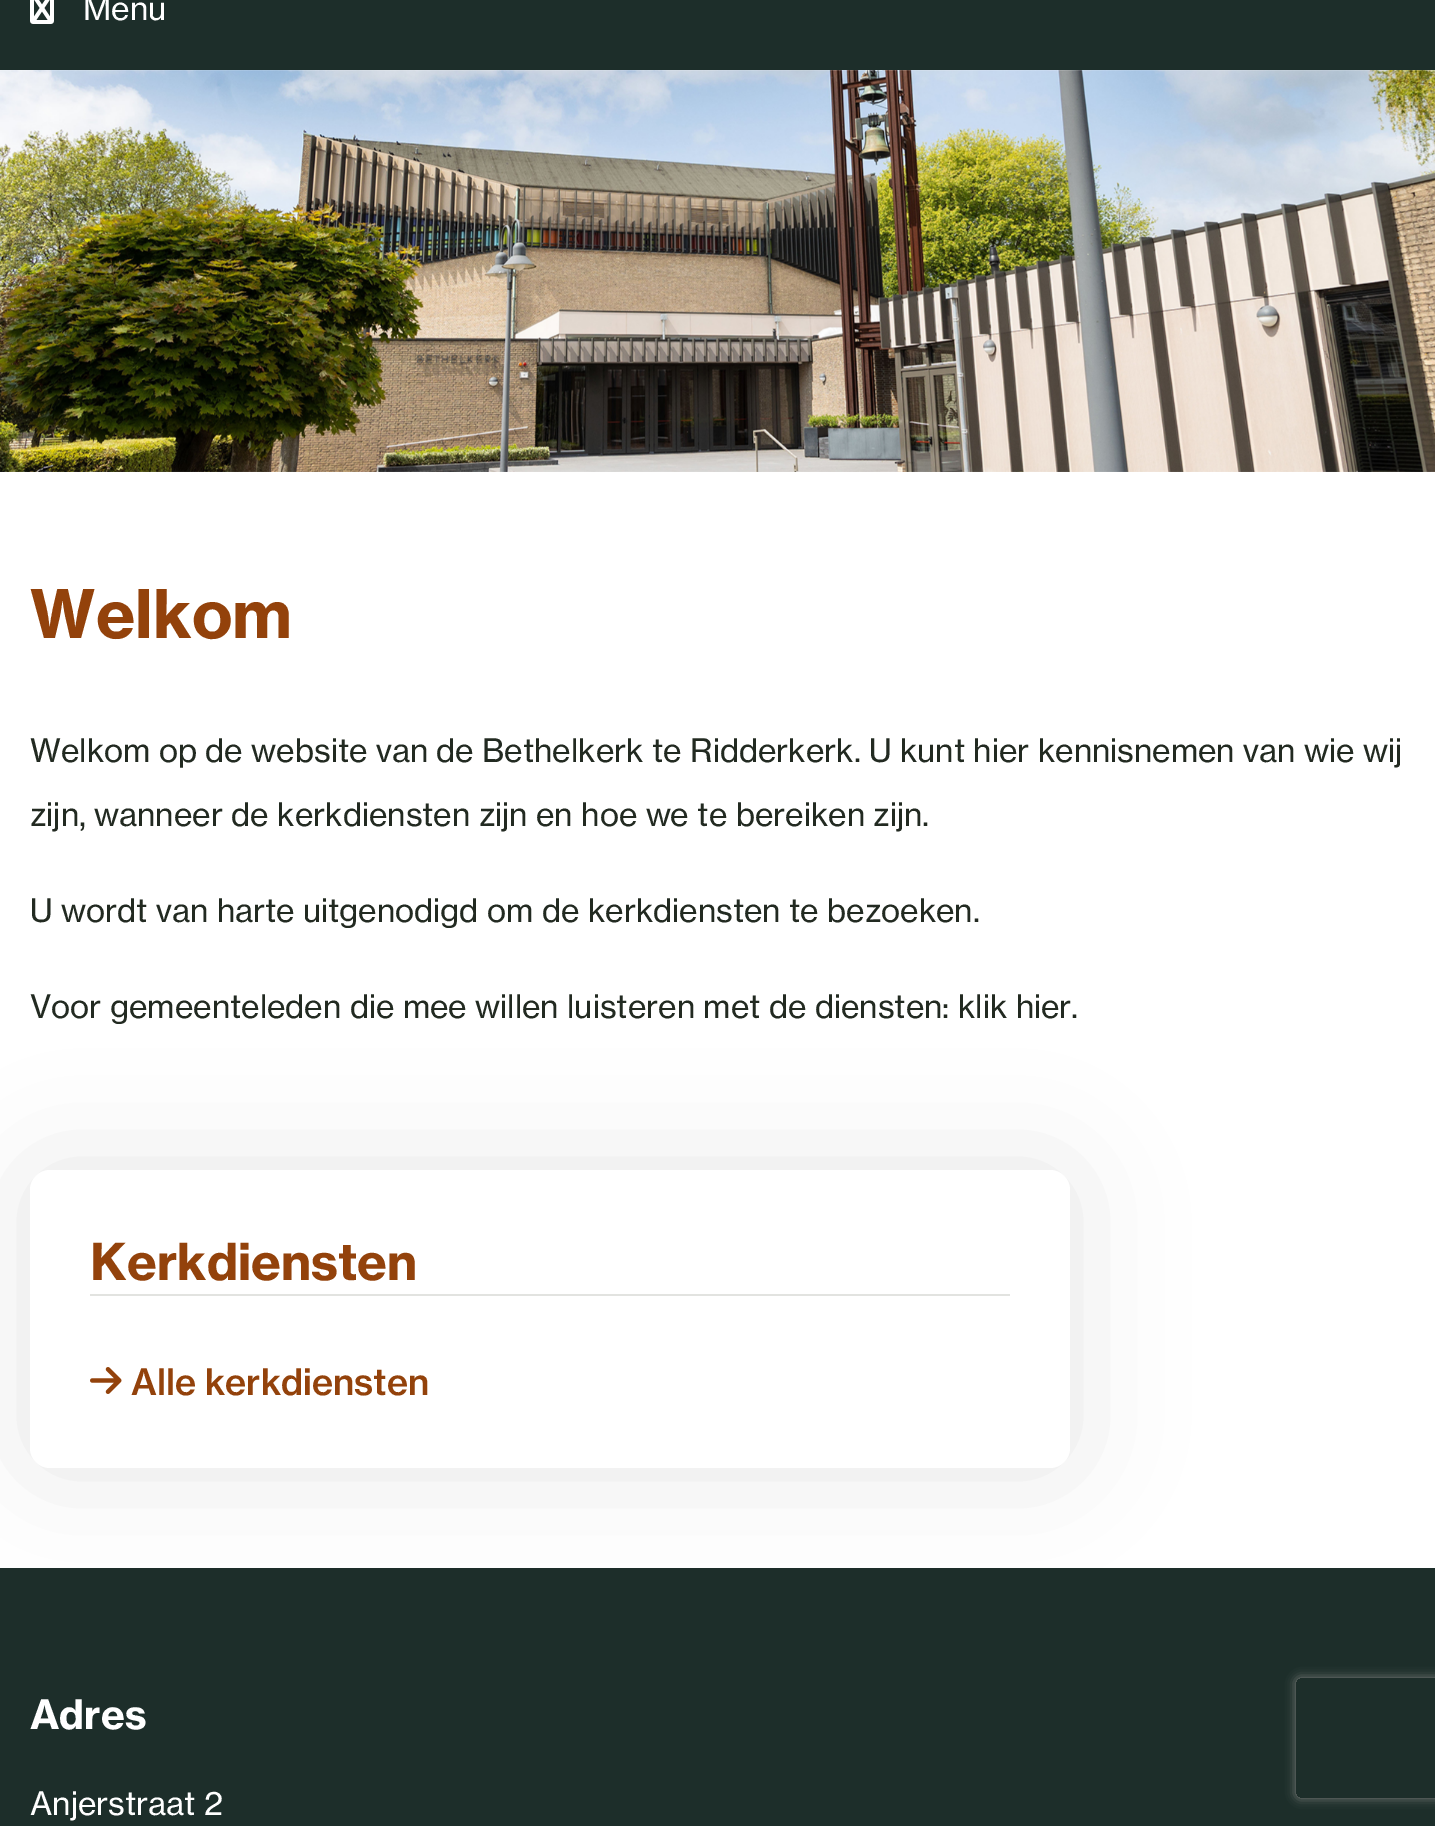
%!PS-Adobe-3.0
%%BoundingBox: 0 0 1435 1826
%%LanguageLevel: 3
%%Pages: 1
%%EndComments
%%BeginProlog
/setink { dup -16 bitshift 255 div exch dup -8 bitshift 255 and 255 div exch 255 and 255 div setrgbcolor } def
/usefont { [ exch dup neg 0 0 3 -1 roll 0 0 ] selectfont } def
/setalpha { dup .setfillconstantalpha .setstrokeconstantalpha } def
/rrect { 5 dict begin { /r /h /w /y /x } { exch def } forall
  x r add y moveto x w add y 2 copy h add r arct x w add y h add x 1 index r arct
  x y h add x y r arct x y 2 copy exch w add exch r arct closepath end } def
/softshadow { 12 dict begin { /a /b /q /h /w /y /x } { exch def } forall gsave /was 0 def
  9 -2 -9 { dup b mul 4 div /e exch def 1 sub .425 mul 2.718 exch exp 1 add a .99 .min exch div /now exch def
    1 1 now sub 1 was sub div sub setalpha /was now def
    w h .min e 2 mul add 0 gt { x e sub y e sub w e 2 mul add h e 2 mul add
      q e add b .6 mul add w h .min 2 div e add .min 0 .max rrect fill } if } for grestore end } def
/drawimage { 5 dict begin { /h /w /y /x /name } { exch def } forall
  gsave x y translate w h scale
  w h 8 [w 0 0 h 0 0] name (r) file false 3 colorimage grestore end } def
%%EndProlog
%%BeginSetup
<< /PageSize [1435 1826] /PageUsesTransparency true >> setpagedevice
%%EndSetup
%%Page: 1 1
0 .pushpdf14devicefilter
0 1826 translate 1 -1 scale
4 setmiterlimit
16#FFFFFF setink
0 0 1435 1826 rectfill
16#1D2E2A setink
0 0 1435 70 rectfill
(img1.raw) 30 0 24 24 drawimage
/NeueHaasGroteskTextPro-Regular 32 usefont
16#FFFFFF setink
83 20 moveto (Menu) show
(img2.raw) 0 70 1435 402 drawimage
/NeueHaasGroteskTextPro-Bold 66 usefont
16#93420B setink
30 638 moveto (Welkom) show
/NeueHaasGroteskTextPro-Regular 32 usefont
16#222A21 setink
[
    [(Welkom op de website van de Bethelkerk te Ridderkerk. U kunt hier kennisnemen van wie wij) 30 762]
    [(zijn, wanneer de kerkdiensten zijn en hoe we te bereiken zijn.) 30 826]
    [(U wordt van harte uitgenodigd om de kerkdiensten te bezoeken.) 30 922]
    [(Voor gemeenteleden die mee willen luisteren met de diensten: klik hier.) 30 1018]
] { aload pop moveto show } forall
16#1D2E2A setink
0 1568 1435 258 rectfill
16#000000 setink
30 1170 1040 298 20 54 0.1 softshadow
16#FFFFFF setink
30 1170 1040 298 20 rrect fill
/NeueHaasGroteskTextPro-Bold 50 usefont
16#93420B setink
90 1280 moveto (Kerkdiensten) show
16#E2E3E0 setink
90 1294 920 2 rectfill
(img3.raw) 90 1367 32 27 drawimage
/NeueHaasGroteskTextPro-Medium 36 usefont
16#93420B setink
131 1395 moveto (Alle kerkdiensten) show
/NeueHaasGroteskTextPro-Bold 40 usefont
16#FFFFFF setink
30 1729 moveto (Adres) show
/NeueHaasGroteskTextPro-Regular 32 usefont
30 1815 moveto (Anjerstraat 2) show
gsave
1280 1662 moveto 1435 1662 lineto 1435 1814 lineto 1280 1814 lineto closepath 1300 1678 moveto 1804 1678 lineto 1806 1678 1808 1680 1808 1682 curveto 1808 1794 lineto 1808 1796 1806 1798 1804 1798 curveto 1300 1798 lineto 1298 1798 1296 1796 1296 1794 curveto 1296 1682 lineto 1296 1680 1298 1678 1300 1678 curveto closepath eoclip newpath
16#808080 setink
1296 1678 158 120 4 5 1 softshadow
grestore
.poppdf14devicefilter showpage
%%EOF
